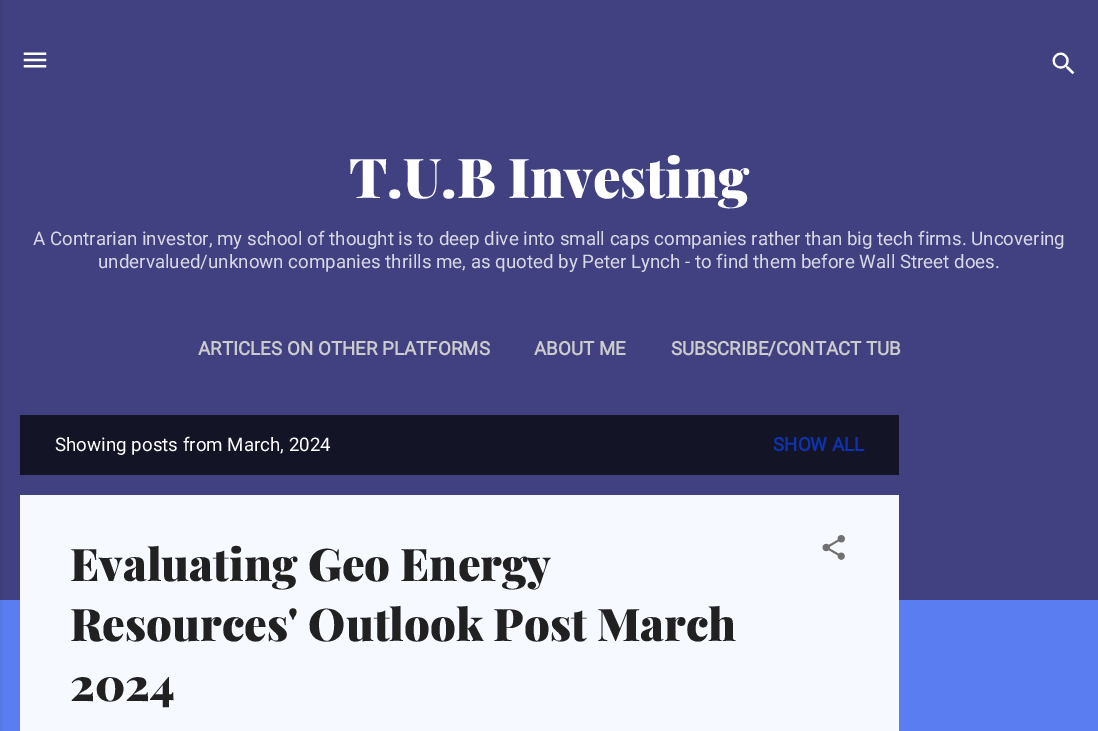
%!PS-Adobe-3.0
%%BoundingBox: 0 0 1098 731
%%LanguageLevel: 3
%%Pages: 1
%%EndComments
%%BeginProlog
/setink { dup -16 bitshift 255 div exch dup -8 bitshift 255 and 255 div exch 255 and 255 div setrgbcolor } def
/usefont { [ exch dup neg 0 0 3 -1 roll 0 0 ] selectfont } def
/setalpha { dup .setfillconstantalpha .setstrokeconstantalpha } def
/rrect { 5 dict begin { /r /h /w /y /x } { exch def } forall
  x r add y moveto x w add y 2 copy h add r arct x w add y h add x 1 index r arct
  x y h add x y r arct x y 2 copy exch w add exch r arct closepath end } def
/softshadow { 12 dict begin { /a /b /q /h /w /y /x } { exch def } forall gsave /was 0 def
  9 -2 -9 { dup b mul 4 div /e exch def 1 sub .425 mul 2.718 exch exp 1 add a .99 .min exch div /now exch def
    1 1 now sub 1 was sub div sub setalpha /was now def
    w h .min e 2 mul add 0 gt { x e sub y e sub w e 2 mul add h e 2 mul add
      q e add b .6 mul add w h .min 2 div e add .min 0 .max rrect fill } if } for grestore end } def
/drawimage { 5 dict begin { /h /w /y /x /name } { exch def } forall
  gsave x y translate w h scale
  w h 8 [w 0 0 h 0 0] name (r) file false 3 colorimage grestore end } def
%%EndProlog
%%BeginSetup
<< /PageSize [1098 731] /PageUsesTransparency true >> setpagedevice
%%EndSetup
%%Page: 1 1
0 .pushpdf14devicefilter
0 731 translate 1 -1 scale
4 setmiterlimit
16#5A7EF2 setink
0 0 1098 731 rectfill
16#414182 setink
0 0 1098 600 rectfill
16#000000 setink
-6 1 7 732 0 2 0.1 softshadow
(img1.raw) 23 52 24 16 drawimage
(img2.raw) 1052 52 23 23 drawimage
/PlayfairDisplay-Black 55 usefont
16#FFFFFF setink
349 198 moveto (T.U.B Investing) show
/Roboto-Regular 18.75 usefont
16#D9D9E6 setink
33 245 moveto (A Contrarian investor, my school of thought is to deep dive into small caps companies rather than big tech firms. Uncovering) show
98 268 moveto (undervalued/unknown companies thrills me, as quoted by Peter Lynch - to find them before Wall Street does.) show
/Roboto-Bold 18.75 usefont
16#CCCCCC setink
[
    [(ARTICLES ON OTHER PLATFORMS) 198 355]
    [(ABOUT ME) 534 355]
    [(SUBSCRIBE/CONTACT TUB) 671 355]
] { aload pop moveto show } forall
16#141427 setink
20 415 879 60 rectfill
/Roboto-Regular 18.75 usefont
16#FFFFFF setink
55 451 moveto (Showing posts from March, 2024) show
/Roboto-Bold 18.75 usefont
16#0D33B3 setink
773 451 moveto (SHOW ALL) show
16#F6F9FF setink
20 495 879 236 rectfill
/PlayfairDisplay-Black 45 usefont
16#212121 setink
[
    [(Evaluating Geo Energy) 70 581]
    [(Resources' Outlook Post March) 70 641]
    [(2024) 70 701]
] { aload pop moveto show } forall
(img3.raw) 822 535 23 25 drawimage
.poppdf14devicefilter showpage
%%EOF
